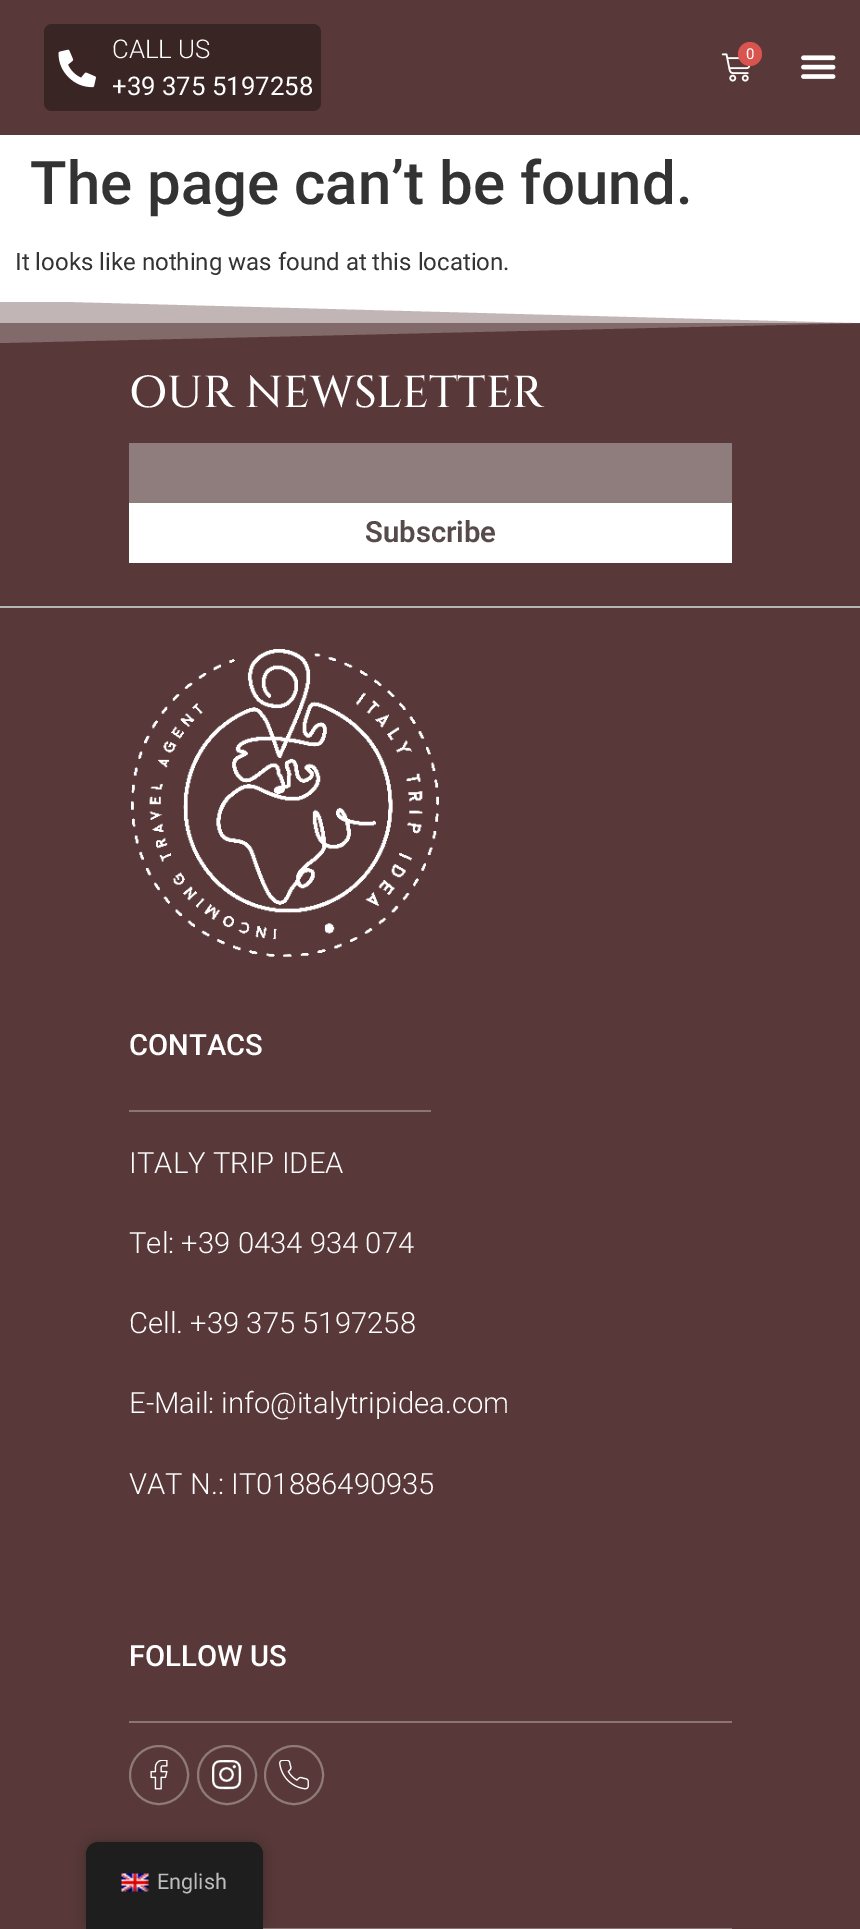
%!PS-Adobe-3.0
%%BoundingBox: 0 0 860 1929
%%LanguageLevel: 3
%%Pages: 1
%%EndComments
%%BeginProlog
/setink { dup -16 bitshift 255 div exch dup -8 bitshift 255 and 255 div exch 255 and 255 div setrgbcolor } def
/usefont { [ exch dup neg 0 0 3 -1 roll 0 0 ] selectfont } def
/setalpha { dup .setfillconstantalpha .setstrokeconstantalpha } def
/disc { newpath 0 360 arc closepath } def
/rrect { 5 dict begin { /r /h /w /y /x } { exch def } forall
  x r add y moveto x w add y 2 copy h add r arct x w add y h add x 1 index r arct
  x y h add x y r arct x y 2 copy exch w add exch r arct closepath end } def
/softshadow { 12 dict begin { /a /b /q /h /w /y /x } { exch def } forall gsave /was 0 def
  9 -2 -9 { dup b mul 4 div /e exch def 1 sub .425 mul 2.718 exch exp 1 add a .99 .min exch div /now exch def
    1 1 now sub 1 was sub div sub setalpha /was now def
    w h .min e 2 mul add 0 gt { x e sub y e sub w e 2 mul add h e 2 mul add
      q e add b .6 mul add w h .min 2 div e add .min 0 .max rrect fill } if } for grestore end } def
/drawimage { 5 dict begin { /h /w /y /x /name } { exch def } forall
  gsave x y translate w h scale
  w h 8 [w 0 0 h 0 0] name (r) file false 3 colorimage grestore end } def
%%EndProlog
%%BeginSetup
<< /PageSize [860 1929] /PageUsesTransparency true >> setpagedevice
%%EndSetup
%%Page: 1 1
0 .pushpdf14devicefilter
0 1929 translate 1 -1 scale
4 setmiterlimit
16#FFFFFF setink
0 0 860 1929 rectfill
16#583838 setink
0 0 860 135 rectfill
16#472D2D setink
44 24 277 87 8 rrect fill
0.19 setalpha
16#000000 setink
44 24 277 87 8 rrect fill
1 setalpha
(img1.raw) 58 49 38 39 drawimage
/Roboto-Light 25.75 usefont
16#FFFFFF setink
112 58 moveto (CALL US) show
/Roboto-Regular 25.75 usefont
112 95 moveto (+39 375 5197258) show
(img2.raw) 721 53 30 29 drawimage
16#D9534F setink
750 54 12 disc fill
/Roboto-Regular 15 usefont
16#FFFFFF setink
746 59 moveto (0) show
(img3.raw) 801 55 35 24 drawimage
/Roboto-Medium 60 usefont
16#333333 setink
30 204 moveto (The page can’t be found.) show
/Roboto-Regular 24 usefont
15 270 moveto (It looks like nothing was found at this location.) show
[
    [0 323 860 283 16#583838]
    [0 302 860 21 16#AC9C9C]
    [0 606 860 2 16#B6B6B6]
] { aload pop setink rectfill } forall
16#FFFFFF setink
-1 300 moveto 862 300 lineto 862 323 lineto closepath fill
0.25 setalpha
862 300 moveto -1 300 lineto -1 343 lineto 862 323 lineto closepath fill
/Cinzel-Medium 44.75 usefont
1 setalpha
129 407 moveto (OUR NEWSLETTER) show
16#8F7C7D setink
129 443 603 60 rectfill
16#FFFFFF setink
129 503 603 60 rectfill
/Roboto-SemiBold 29.25 usefont
16#564A4A setink
365 542 moveto (Subscribe) show
16#583838 setink
0 608 860 1321 rectfill
(img4.raw) 131 649 308 309 drawimage
/Roboto-Medium 29.25 usefont
16#FFFFFF setink
129 1055 moveto (CONTACS) show
16#8A7474 setink
129 1110 302 2 rectfill
/Roboto-Light 29.25 usefont
16#FFFFFF setink
[
    [(ITALY TRIP IDEA) 129 1173]
    [(Tel: +39 0434 934 074) 129 1253]
    [(Cell. +39 375 5197258) 129 1333]
    [(E-Mail: info@italytripidea.com) 129 1413]
    [(VAT N.: IT01886490935) 129 1494]
] { aload pop moveto show } forall
/Roboto-Medium 29.25 usefont
129 1666 moveto (FOLLOW US) show
16#8A7474 setink
129 1721 603 2 rectfill
16#8F7A7A setink
2 setlinewidth
159 1775 29 disc stroke
(img5.raw) 150 1760 18 30 drawimage
227 1775 29 disc stroke
(img6.raw) 212 1760 30 30 drawimage
294 1775 29 disc stroke
(img7.raw) 279 1760 30 30 drawimage
16#8A7474 setink
263 1928 469 1 rectfill
16#000000 setink
86 1842 177 87 12 6 0.25 softshadow
16#1E1E1E setink
98 1842 moveto 251 1842 lineto 257.5 1842 263 1847.5 263 1854 curveto 263 1929 lineto 86 1929 lineto 86 1854 lineto 86 1847.5 91.5 1842 98 1842 curveto closepath fill
(img8.raw) 121 1873 28 19 drawimage
/Roboto-Regular 21.5 usefont
16#BDBDBD setink
157 1889 moveto (English) show
.poppdf14devicefilter showpage
%%EOF
